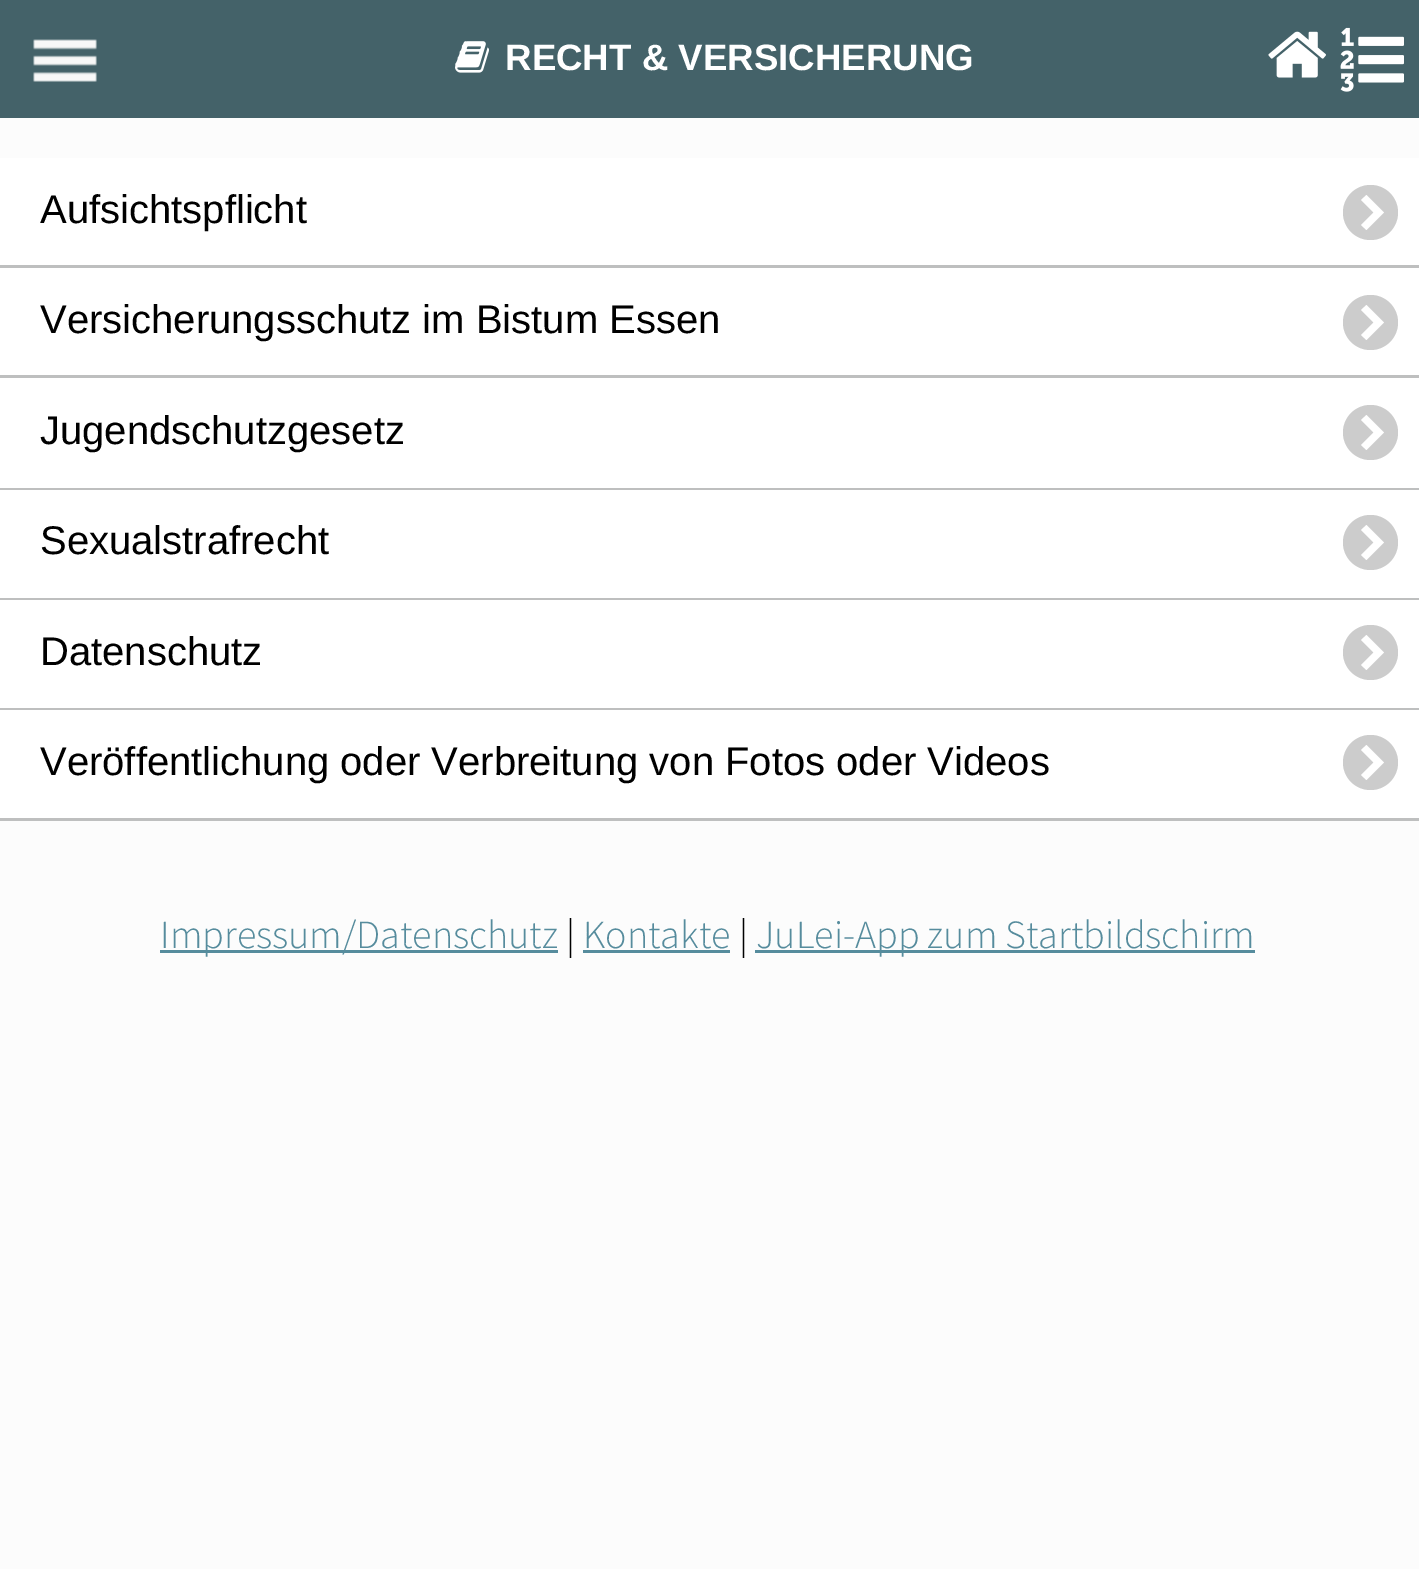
%!PS-Adobe-3.0
%%BoundingBox: 0 0 1419 1569
%%LanguageLevel: 3
%%Pages: 1
%%EndComments
%%BeginProlog
/setink { dup -16 bitshift 255 div exch dup -8 bitshift 255 and 255 div exch 255 and 255 div setrgbcolor } def
/usefont { [ exch dup neg 0 0 3 -1 roll 0 0 ] selectfont } def
/disc { newpath 0 360 arc closepath } def
/drawimage { 5 dict begin { /h /w /y /x /name } { exch def } forall
  gsave x y translate w h scale
  w h 8 [w 0 0 h 0 0] name (r) file false 3 colorimage grestore end } def
%%EndProlog
%%BeginSetup
<< /PageSize [1419 1569] >> setpagedevice
%%EndSetup
%%Page: 1 1
0 1569 translate 1 -1 scale
4 setmiterlimit
16#FCFCFC setink
0 0 1419 1569 rectfill
16#446269 setink
0 0 1419 118 rectfill
(img1.raw) 33 39 64 43 drawimage
(img2.raw) 455 41 34 32 drawimage
/LiberationSans-Bold 36.7 usefont
16#FFFFFF setink
505 70 moveto (RECHT & VERSICHERUNG) show
(img3.raw) 1268 31 58 47 drawimage
(img4.raw) 1340 27 64 65 drawimage
0 158 1419 107 rectfill
16#BEBFBF setink
0 265 1419 3 rectfill
/LiberationSans-Regular 40 usefont
16#000000 setink
40 223 moveto (Aufsichtspflicht) show
16#CCCCCC setink
1370.5 212.5 27.5 disc fill
16#FFFFFF setink
1361 200 moveto 1373.5 212.5 lineto 1361 225 lineto 1366.5 230 lineto 1384 212.5 lineto 1366.5 195 lineto closepath fill
0 268 1419 107 rectfill
16#BEBFBF setink
0 375 1419 3 rectfill
16#000000 setink
40 333 moveto (Versicherungsschutz im Bistum Essen) show
16#CCCCCC setink
1370.5 322.5 27.5 disc fill
16#FFFFFF setink
1361 310 moveto 1373.5 322.5 lineto 1361 335 lineto 1366.5 340 lineto 1384 322.5 lineto 1366.5 305 lineto closepath fill
0 378 1419 110 rectfill
16#BEBFBF setink
0 488 1419 2 rectfill
16#000000 setink
40 444 moveto (Jugendschutzgesetz) show
16#CCCCCC setink
1370.5 432.5 27.5 disc fill
16#FFFFFF setink
1361 420 moveto 1373.5 432.5 lineto 1361 445 lineto 1366.5 450 lineto 1384 432.5 lineto 1366.5 415 lineto closepath fill
0 490 1419 108 rectfill
16#BEBFBF setink
0 598 1419 2 rectfill
16#000000 setink
40 554 moveto (Sexualstrafrecht) show
16#CCCCCC setink
1370.5 542.5 27.5 disc fill
16#FFFFFF setink
1361 530 moveto 1373.5 542.5 lineto 1361 555 lineto 1366.5 560 lineto 1384 542.5 lineto 1366.5 525 lineto closepath fill
0 600 1419 108 rectfill
16#BEBFBF setink
0 708 1419 2 rectfill
16#000000 setink
40 665 moveto (Datenschutz) show
16#CCCCCC setink
1370.5 652.5 27.5 disc fill
16#FFFFFF setink
1361 640 moveto 1373.5 652.5 lineto 1361 665 lineto 1366.5 670 lineto 1384 652.5 lineto 1366.5 635 lineto closepath fill
0 710 1419 108 rectfill
16#BEBFBF setink
0 818 1419 3 rectfill
16#000000 setink
40 775 moveto (Veröffentlichung oder Verbreitung von Fotos oder Videos) show
16#CCCCCC setink
1370.5 762.5 27.5 disc fill
16#FFFFFF setink
1361 750 moveto 1373.5 762.5 lineto 1361 775 lineto 1366.5 780 lineto 1384 762.5 lineto 1366.5 745 lineto closepath fill
16#568C9D setink
160 950 398 3 rectfill
/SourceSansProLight-Light 40 usefont
160 948 moveto (Impressum/Datenschutz) show
16#000000 setink
566 948 moveto (|) show
16#568C9D setink
583 948 moveto (Kontakte) show
583 950 147 3 rectfill
16#000000 setink
739 948 moveto (|) show
16#568C9D setink
755 950 500 3 rectfill
756 948 moveto (JuLei-App zum Startbildschirm) show
showpage
%%EOF
